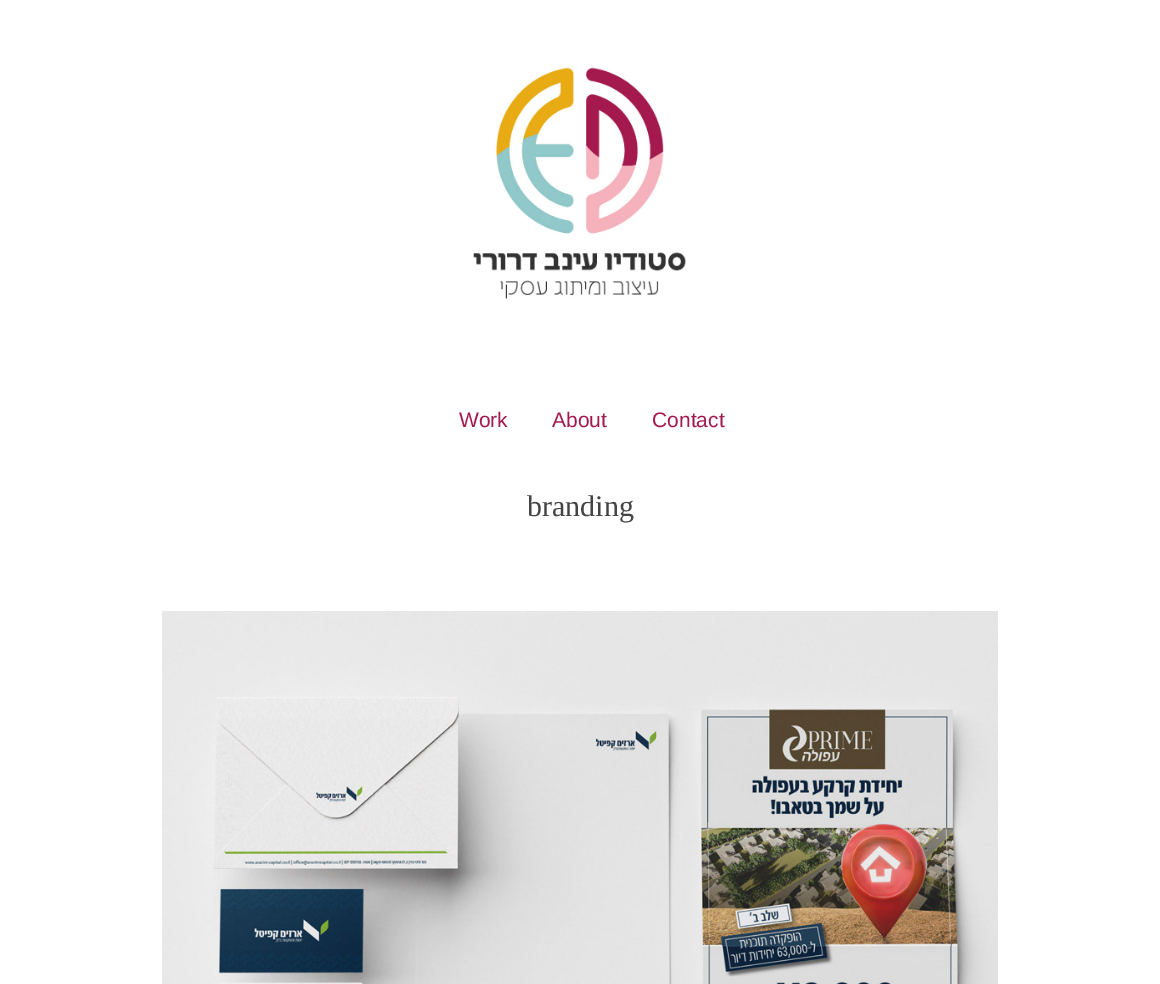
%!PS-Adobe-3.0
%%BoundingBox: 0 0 1160 984
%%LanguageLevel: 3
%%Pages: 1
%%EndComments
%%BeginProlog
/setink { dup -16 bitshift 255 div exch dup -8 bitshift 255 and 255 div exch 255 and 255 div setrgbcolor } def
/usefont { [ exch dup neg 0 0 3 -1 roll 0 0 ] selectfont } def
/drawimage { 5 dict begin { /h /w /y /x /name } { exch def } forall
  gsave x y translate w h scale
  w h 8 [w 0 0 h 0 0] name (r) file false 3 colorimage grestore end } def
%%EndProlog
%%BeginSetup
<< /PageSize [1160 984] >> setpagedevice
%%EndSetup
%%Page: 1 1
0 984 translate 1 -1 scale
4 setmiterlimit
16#FFFFFF setink
0 0 1160 984 rectfill
(img1.raw) 473 66 213 233 drawimage
/LiberationSans-Regular 21 usefont
16#A31A4F setink
[
    [(Work) 459 427]
    [(About) 552 427]
    [(Contact) 652 427]
] { aload pop moveto show } forall
/LiberationSerif-Regular 30 usefont
16#444444 setink
527 516 moveto (branding) show
(img2.raw) 162 611 836 373 drawimage
showpage
%%EOF
